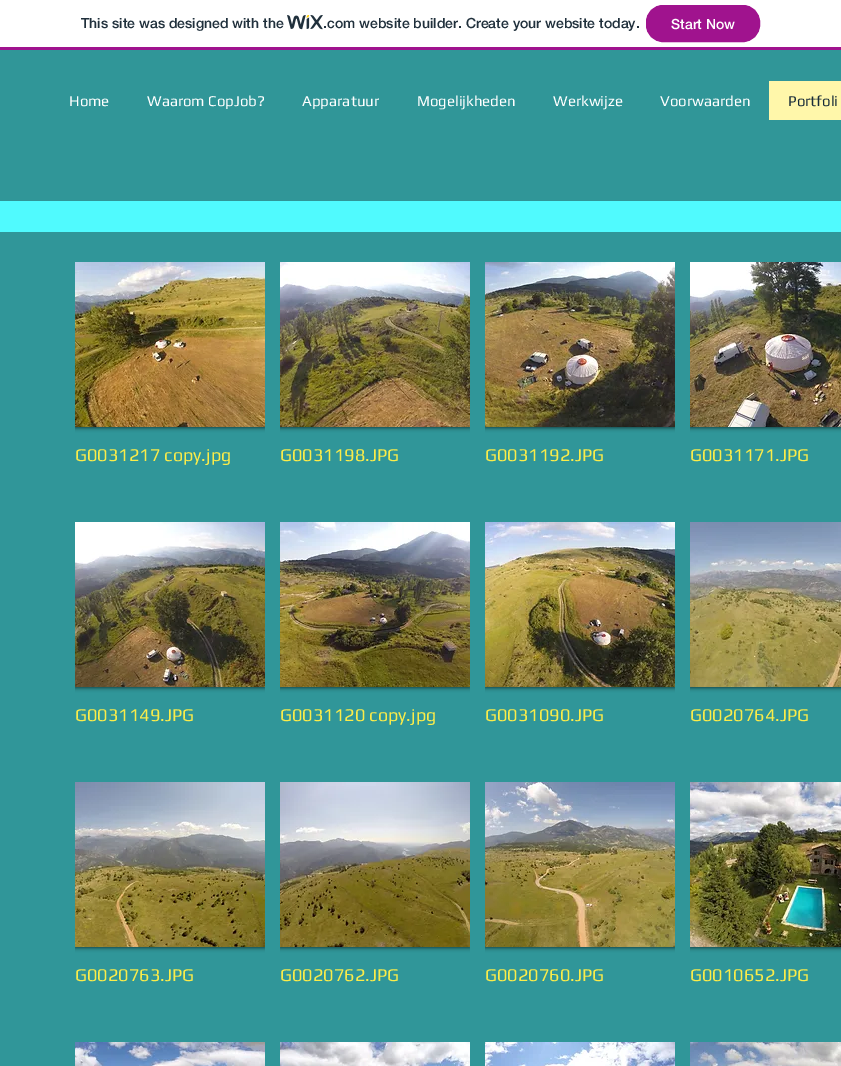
%!PS-Adobe-3.0
%%BoundingBox: 0 0 841 1066
%%LanguageLevel: 3
%%Pages: 1
%%EndComments
%%BeginProlog
/setink { dup -16 bitshift 255 div exch dup -8 bitshift 255 and 255 div exch 255 and 255 div setrgbcolor } def
/usefont { [ exch dup neg 0 0 3 -1 roll 0 0 ] selectfont } def
/setalpha { dup .setfillconstantalpha .setstrokeconstantalpha } def
/rrect { 5 dict begin { /r /h /w /y /x } { exch def } forall
  x r add y moveto x w add y 2 copy h add r arct x w add y h add x 1 index r arct
  x y h add x y r arct x y 2 copy exch w add exch r arct closepath end } def
/softshadow { 12 dict begin { /a /b /q /h /w /y /x } { exch def } forall gsave /was 0 def
  9 -2 -9 { dup b mul 4 div /e exch def 1 sub .425 mul 2.718 exch exp 1 add a .99 .min exch div /now exch def
    1 1 now sub 1 was sub div sub setalpha /was now def
    w h .min e 2 mul add 0 gt { x e sub y e sub w e 2 mul add h e 2 mul add
      q e add b .6 mul add w h .min 2 div e add .min 0 .max rrect fill } if } for grestore end } def
/drawimage { 5 dict begin { /h /w /y /x /name } { exch def } forall
  gsave x y translate w h scale
  w h 8 [w 0 0 h 0 0] name (r) file false 3 colorimage grestore end } def
%%EndProlog
%%BeginSetup
<< /PageSize [841 1066] /PageUsesTransparency true >> setpagedevice
%%EndSetup
%%Page: 1 1
0 .pushpdf14devicefilter
0 1066 translate 1 -1 scale
4 setmiterlimit
16#50FAFE setink
0 0 841 1066 rectfill
16#FFFFFF setink
0 0 841 47 rectfill
16#A0138E setink
0 47 841 3 rectfill
/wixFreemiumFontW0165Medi-Medium 14 usefont
16#20303C setink
81 28 moveto (This site was designed with the) show
(img1.raw) 287 15 36 15 drawimage
323 28 moveto (.com website builder. Create your website today.) show
16#A0138E setink
646.5 5.5 113 36 16.5 rrect gsave fill grestore
stroke
16#FFFFFF setink
671 29 moveto (Start Now) show
16#309698 setink
0 50 841 151 rectfill
/Play-Regular 15 usefont
16#FFFFFF setink
[
    [(Home) 69 106]
    [(Waarom CopJob?) 147 106]
    [(Apparatuur) 302 106]
    [(Mogelijkheden) 417 106]
    [(Werkwijze) 553 106]
    [(Voorwaarden) 660 106]
] { aload pop moveto show } forall
16#FFF7AA setink
769 81 72 39 rectfill
16#192D39 setink
788 106 moveto (Portfoli) show
16#309699 setink
0 232 841 834 rectfill
gsave
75 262 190 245 rectclip
16#000000 setink
75 263 190 165 0 2 0.6 softshadow
grestore
(img2.raw) 75 262 190 165 drawimage
/Play-Regular 18 usefont
16#FBEC49 setink
75 461 moveto (G0031217 copy.jpg) show
gsave
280 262 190 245 rectclip
16#000000 setink
280 263 190 165 0 2 0.6 softshadow
grestore
(img3.raw) 280 262 190 165 drawimage
280 461 moveto (G0031198.JPG) show
gsave
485 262 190 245 rectclip
16#000000 setink
485 263 190 165 0 2 0.6 softshadow
grestore
(img4.raw) 485 262 190 165 drawimage
485 461 moveto (G0031192.JPG) show
gsave
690 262 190 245 rectclip
16#000000 setink
690 263 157 165 0 2 0.6 softshadow
grestore
(img5.raw) 690 262 151 165 drawimage
690 461 moveto (G0031171.JPG) show
gsave
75 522 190 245 rectclip
16#000000 setink
75 523 190 165 0 2 0.6 softshadow
grestore
(img6.raw) 75 522 190 165 drawimage
75 721 moveto (G0031149.JPG) show
gsave
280 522 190 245 rectclip
16#000000 setink
280 523 190 165 0 2 0.6 softshadow
grestore
(img7.raw) 280 522 190 165 drawimage
280 721 moveto (G0031120 copy.jpg) show
gsave
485 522 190 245 rectclip
16#000000 setink
485 523 190 165 0 2 0.6 softshadow
grestore
(img8.raw) 485 522 190 165 drawimage
485 721 moveto (G0031090.JPG) show
gsave
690 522 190 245 rectclip
16#000000 setink
690 523 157 165 0 2 0.6 softshadow
grestore
(img9.raw) 690 522 151 165 drawimage
690 721 moveto (G0020764.JPG) show
gsave
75 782 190 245 rectclip
16#000000 setink
75 783 190 165 0 2 0.6 softshadow
grestore
(img10.raw) 75 782 190 165 drawimage
75 981 moveto (G0020763.JPG) show
gsave
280 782 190 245 rectclip
16#000000 setink
280 783 190 165 0 2 0.6 softshadow
grestore
(img11.raw) 280 782 190 165 drawimage
280 981 moveto (G0020762.JPG) show
gsave
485 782 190 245 rectclip
16#000000 setink
485 783 190 165 0 2 0.6 softshadow
grestore
(img12.raw) 485 782 190 165 drawimage
485 981 moveto (G0020760.JPG) show
gsave
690 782 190 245 rectclip
16#000000 setink
690 783 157 165 0 2 0.6 softshadow
grestore
(img13.raw) 690 782 151 165 drawimage
690 981 moveto (G0010652.JPG) show
(img14.raw) 75 1042 190 24 drawimage
(img15.raw) 280 1042 190 24 drawimage
(img16.raw) 485 1042 190 24 drawimage
(img17.raw) 690 1042 151 24 drawimage
.poppdf14devicefilter showpage
%%EOF
